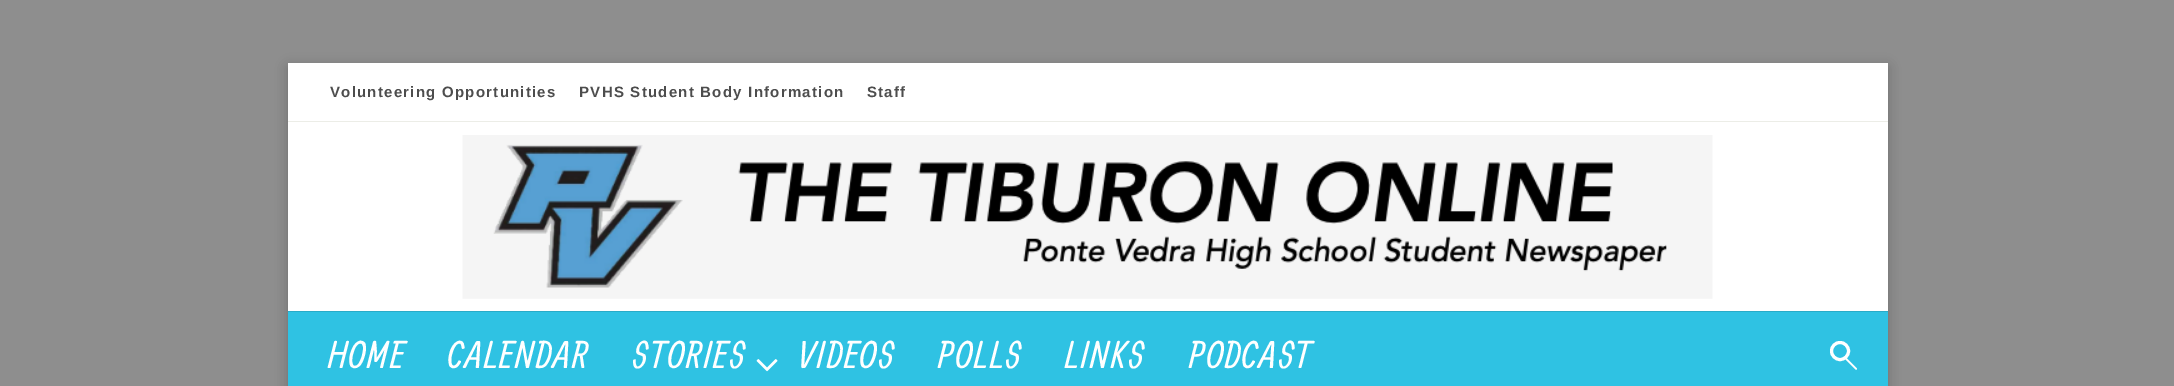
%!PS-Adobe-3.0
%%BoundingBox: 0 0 2174 386
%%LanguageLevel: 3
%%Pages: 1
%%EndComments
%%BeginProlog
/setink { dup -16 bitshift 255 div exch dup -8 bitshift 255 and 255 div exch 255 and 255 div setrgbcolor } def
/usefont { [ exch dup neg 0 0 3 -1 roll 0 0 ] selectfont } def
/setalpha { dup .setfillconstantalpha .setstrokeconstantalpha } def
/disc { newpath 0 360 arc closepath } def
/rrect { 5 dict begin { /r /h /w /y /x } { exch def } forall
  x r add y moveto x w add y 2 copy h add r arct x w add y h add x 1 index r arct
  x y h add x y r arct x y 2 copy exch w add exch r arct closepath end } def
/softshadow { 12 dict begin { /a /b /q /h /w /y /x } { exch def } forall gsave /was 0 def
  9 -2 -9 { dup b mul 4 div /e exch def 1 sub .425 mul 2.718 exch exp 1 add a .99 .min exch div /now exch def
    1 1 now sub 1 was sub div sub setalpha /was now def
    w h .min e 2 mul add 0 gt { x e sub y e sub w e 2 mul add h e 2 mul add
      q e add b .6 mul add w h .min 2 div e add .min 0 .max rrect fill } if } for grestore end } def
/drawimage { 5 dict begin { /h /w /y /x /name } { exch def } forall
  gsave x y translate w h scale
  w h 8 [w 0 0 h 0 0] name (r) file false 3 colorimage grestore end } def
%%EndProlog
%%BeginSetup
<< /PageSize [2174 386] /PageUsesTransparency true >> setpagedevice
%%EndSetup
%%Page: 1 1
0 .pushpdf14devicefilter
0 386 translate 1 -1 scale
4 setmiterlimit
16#8E8E8E setink
0 0 2174 386 rectfill
16#000000 setink
288 66 1600 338 0 6 0.09 softshadow
288 68 1600 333 0 5 0.1 softshadow
16#FFFFFF setink
288 63 1600 248 rectfill
16#ECEDE7 setink
288 121 1600 1 rectfill
/LiberationSans-Bold 15 usefont
16#4D4D4D setink
330 97 moveto 1.25 0 (Volunteering Opportunities) ashow
579 97 moveto 1.25 0 (PVHS Student Body Information) ashow
867 97 moveto 1.25 0 (Staff) ashow
(img1.raw) 462 135 1251 164 drawimage
16#2FC2E3 setink
288 312 1600 74 rectfill
16#29ABC8 setink
288 311 1600 1 rectfill
/Allan-Regular 37.5 usefont
16#FFFFFF setink
328 368 moveto 1.25 0 (HOME) ashow
448 368 moveto 1.25 0 (CALENDAR) ashow
632 368 moveto 1.25 0 (STORIES) ashow
(img2.raw) 756 359 22 13 drawimage
799 368 moveto 1.25 0 (VIDEOS) ashow
938 368 moveto 1.25 0 (POLLS) ashow
1065 368 moveto 1.25 0 (LINKS) ashow
1189 368 moveto 1.25 0 (PODCAST) ashow
3 setlinewidth
1840 351 8.5 disc stroke
1846.5 358 moveto 1857 368.5 lineto 1857 369.5 1856.5 370 1855.5 369.5 curveto 1845.5 359.5 lineto 1844.5 358.5 1846 357 1846.5 358 curveto closepath fill
.poppdf14devicefilter showpage
%%EOF
